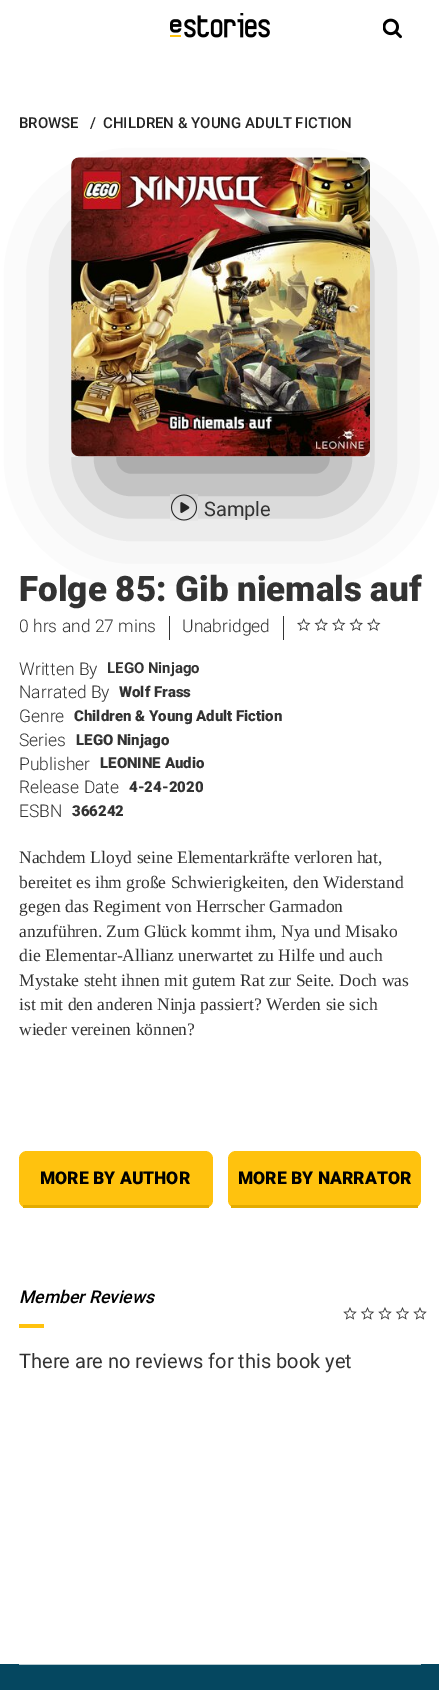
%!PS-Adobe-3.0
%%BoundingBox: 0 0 439 1690
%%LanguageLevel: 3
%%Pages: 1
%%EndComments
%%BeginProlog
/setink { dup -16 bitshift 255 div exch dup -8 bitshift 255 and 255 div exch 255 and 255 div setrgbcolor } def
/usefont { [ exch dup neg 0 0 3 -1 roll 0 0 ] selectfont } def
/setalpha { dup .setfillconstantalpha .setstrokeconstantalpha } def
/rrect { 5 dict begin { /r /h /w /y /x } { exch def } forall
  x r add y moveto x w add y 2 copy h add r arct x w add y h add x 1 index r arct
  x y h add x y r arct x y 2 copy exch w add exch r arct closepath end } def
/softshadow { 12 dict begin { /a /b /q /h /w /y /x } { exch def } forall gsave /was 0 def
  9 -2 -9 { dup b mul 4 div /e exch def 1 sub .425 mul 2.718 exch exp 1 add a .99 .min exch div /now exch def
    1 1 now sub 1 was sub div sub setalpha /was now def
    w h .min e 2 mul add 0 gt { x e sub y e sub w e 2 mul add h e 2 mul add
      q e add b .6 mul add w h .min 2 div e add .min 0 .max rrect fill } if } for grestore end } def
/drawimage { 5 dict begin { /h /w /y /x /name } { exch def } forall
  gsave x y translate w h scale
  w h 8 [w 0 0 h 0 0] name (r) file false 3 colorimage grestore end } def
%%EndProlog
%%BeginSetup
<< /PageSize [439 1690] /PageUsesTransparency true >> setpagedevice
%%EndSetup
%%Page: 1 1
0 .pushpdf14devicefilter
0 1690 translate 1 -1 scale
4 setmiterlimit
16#FFFFFF setink
0 0 439 1690 rectfill
(img1.raw) 170 13 100 25 drawimage
(img2.raw) 383 18 19 21 drawimage
/Roboto-Medium 15 usefont
16#262626 setink
[
    [(BROWSE) 19 128]
    [(/) 90 128]
    [(CHILDREN & YOUNG ADULT FICTION) 103 128]
] { aload pop moveto show } forall
16#333333 setink
169 616 1 24 rectfill
283 616 1 24 rectfill
16#000000 setink
105 249 236 236 0 45 0.45 softshadow
(img3.raw) 71 157 299 300 drawimage
(img4.raw) 170 494 28 27 drawimage
/Roboto-Regular 20 usefont
16#333333 setink
204 516 moveto (Sample) show
/Roboto-Black 35 usefont
19 601 moveto (Folge 85: Gib niemals auf) show
/Roboto-Light 17.5 usefont
19 632 moveto (0 hrs and 27 mins) show
182 632 moveto (Unabridged) show
(img5.raw) 297 618 14 13 drawimage
(img6.raw) 314 618 14 13 drawimage
(img5.raw) 332 618 14 13 drawimage
(img6.raw) 349 618 14 13 drawimage
(img5.raw) 367 618 14 13 drawimage
19 675 moveto (Written By) show
/Roboto-Bold 15 usefont
107 673 moveto (LEGO Ninjago) show
/Roboto-Light 17.5 usefont
19 698 moveto (Narrated By) show
/Roboto-Black 15 usefont
119 697 moveto (Wolf Frass) show
/Roboto-Light 17.5 usefont
19 722 moveto (Genre) show
/Roboto-Black 15 usefont
74 721 moveto (Children & Young Adult Fiction) show
/Roboto-Light 17.5 usefont
19 746 moveto (Series) show
/Roboto-Black 15 usefont
76 745 moveto (LEGO Ninjago) show
/Roboto-Light 17.5 usefont
19 770 moveto (Publisher) show
/Roboto-Black 15 usefont
100 768 moveto (LEONINE Audio) show
/Roboto-Light 17.5 usefont
19 793 moveto (Release Date) show
/Roboto-Black 15 usefont
129 792 moveto (4-24-2020) show
/Roboto-Light 17.5 usefont
19 817 moveto (ESBN) show
/Roboto-Black 15 usefont
72 816 moveto (366242) show
/LiberationSerif-Regular 17.5 usefont
[
    [(Nachdem Lloyd seine Elementarkräfte verloren hat,) 19 863]
    [(bereitet es ihm große Schwierigkeiten, den Widerstand) 19 888]
    [(gegen das Regiment von Herrscher Garmadon) 19 912]
    [(anzuführen. Zum Glück kommt ihm, Nya und Misako) 19 937]
    [(die Elementar-Allianz unerwartet zu Hilfe und auch) 19 961]
    [(Mystake steht ihnen mit gutem Rat zur Seite. Doch was) 19 986]
    [(ist mit den anderen Ninja passiert? Werden sie sich) 19 1010]
    [(wieder vereinen können?) 19 1035]
] { aload pop moveto show } forall
16#FFC20E setink
19 1151 194 57 8 rrect fill
16#E3AB00 setink
23 1205 186 3 rectfill
/Roboto-Black 17.5 usefont
16#000000 setink
40 1184 moveto (MORE BY AUTHOR) show
16#FFC20E setink
228 1151 193 57 8 rrect fill
16#E3AB00 setink
231 1205 187 3 rectfill
16#000000 setink
238 1184 moveto (MORE BY NARRATOR) show
/Roboto-MediumItalic 17.5 usefont
19 1303 moveto (Member Reviews) show
16#FFC20E setink
19 1324 25 4 rectfill
/Roboto-Regular 20 usefont
16#333333 setink
19 1368 moveto (There are no reviews for this book yet) show
(img7.raw) 343 1307 14 13 drawimage
(img8.raw) 360 1307 15 13 drawimage
(img7.raw) 378 1307 14 13 drawimage
(img8.raw) 395 1307 15 13 drawimage
(img7.raw) 413 1307 14 13 drawimage
16#054760 setink
0 1664 439 26 rectfill
16#B4C8CF setink
19 1664 402 1 rectfill
.poppdf14devicefilter showpage
%%EOF
